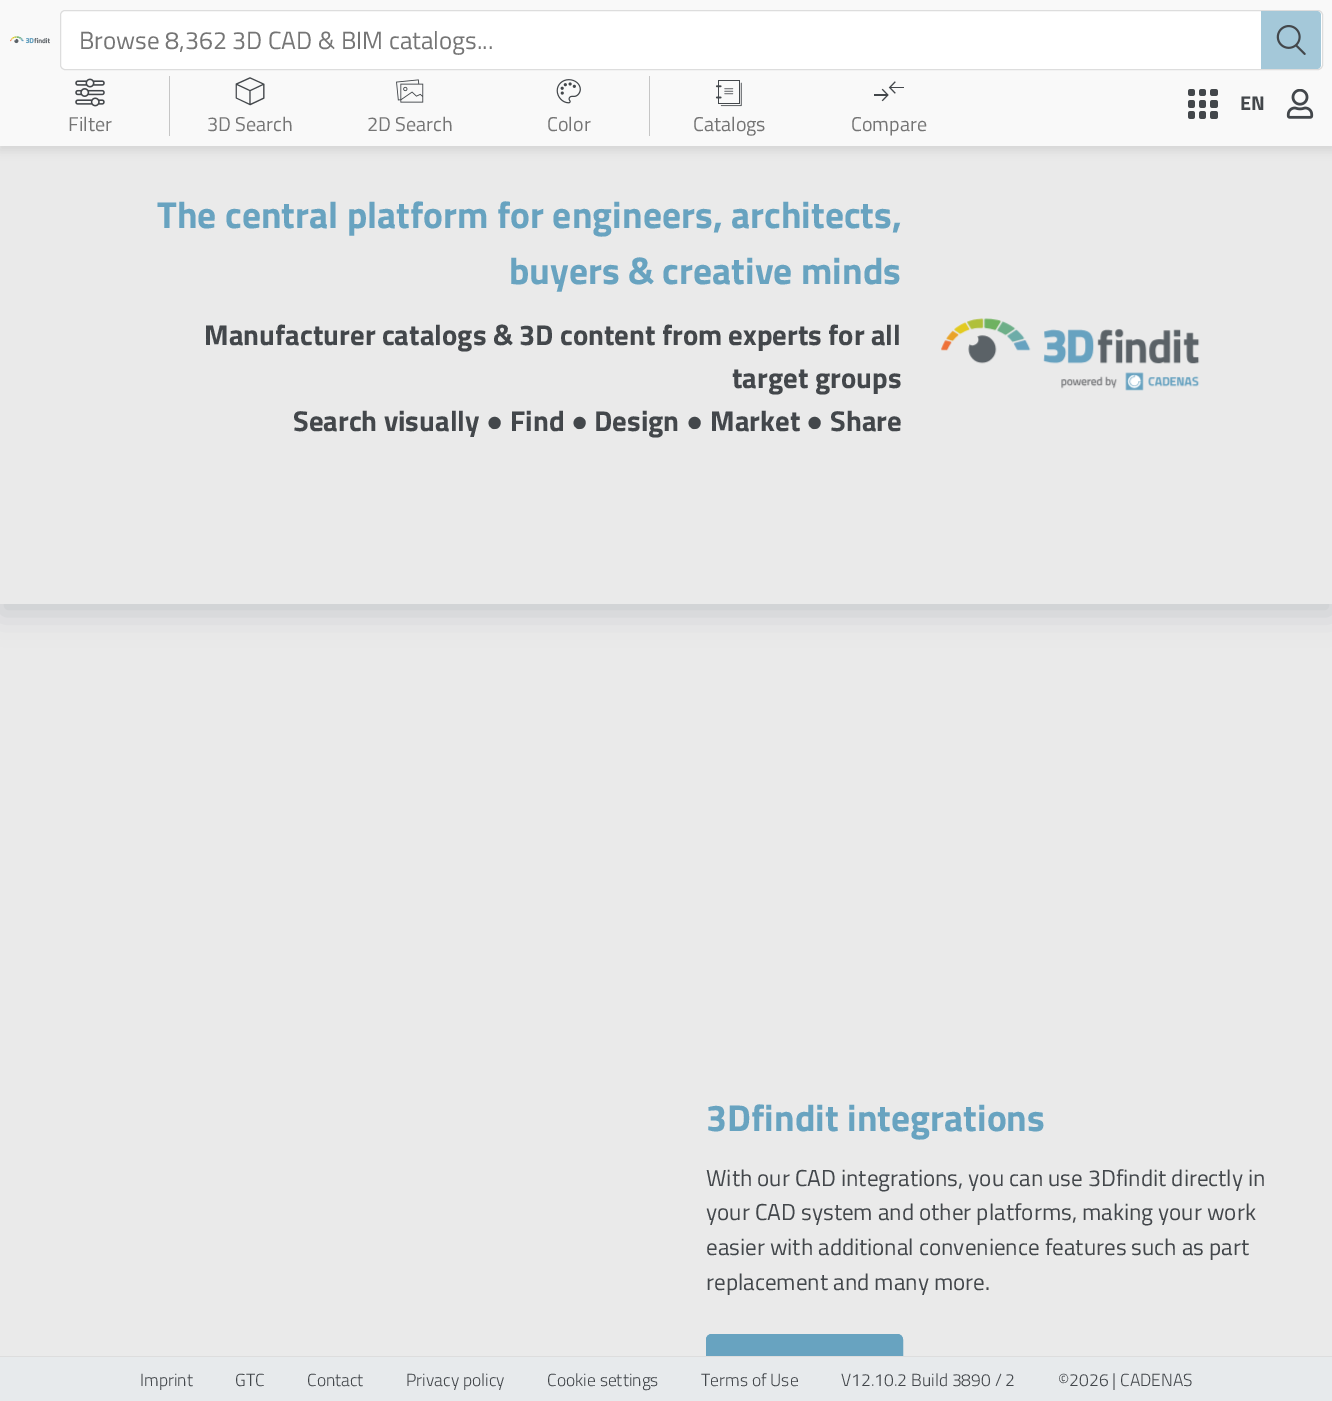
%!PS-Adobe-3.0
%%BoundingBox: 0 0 1332 1401
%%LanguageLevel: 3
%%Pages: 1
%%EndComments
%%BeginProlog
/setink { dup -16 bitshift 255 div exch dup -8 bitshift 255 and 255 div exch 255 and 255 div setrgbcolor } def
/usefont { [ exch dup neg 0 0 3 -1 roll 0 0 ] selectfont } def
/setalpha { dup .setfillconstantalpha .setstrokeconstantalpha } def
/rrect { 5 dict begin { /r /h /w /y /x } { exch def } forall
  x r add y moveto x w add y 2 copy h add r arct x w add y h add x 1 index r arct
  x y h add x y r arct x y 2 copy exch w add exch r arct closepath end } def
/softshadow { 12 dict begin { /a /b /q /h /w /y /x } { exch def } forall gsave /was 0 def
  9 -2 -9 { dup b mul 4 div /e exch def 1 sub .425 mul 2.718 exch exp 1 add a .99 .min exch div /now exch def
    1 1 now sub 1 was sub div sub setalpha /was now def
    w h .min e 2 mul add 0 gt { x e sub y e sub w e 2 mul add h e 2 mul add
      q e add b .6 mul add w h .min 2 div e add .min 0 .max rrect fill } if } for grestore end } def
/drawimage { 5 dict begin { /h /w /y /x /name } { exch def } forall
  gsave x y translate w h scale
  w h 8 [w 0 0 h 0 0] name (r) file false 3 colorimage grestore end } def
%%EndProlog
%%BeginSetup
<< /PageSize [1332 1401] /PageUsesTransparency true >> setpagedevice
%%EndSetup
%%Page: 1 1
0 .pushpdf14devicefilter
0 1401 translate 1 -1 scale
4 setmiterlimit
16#E7EAEC setink
0 0 1332 1401 rectfill
16#EAEAEA setink
0 146 1332 1210 rectfill
16#000000 setink
0 4 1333 146 0 5 0.1 softshadow
gsave
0 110 moveto 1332 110 lineto 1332 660 lineto 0 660 lineto closepath 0 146 moveto 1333 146 lineto 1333 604 lineto 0 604 lineto closepath eoclip newpath
16#959DA5 setink
0 156 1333 458 0 15 0.4 softshadow
grestore
16#F9F9F9 setink
0 0 1332 146 rectfill
(img1.raw) 10 36 40 8 drawimage
16#FFFFFF setink
60.5 10.5 1262 59 4.5 rrect gsave fill grestore
16#DDDDDD setink
stroke
/TitilliumWeb-Regular 25 usefont
16#757575 setink
79 49 moveto (Browse 8,362 3D CAD & BIM catalogs...) show
16#A4C8D9 setink
1261 11 moveto 1317 11 lineto 1319 11 1321 13 1321 15 curveto 1321 65 lineto 1321 67 1319 69 1317 69 curveto 1261 69 lineto closepath fill
(img2.raw) 1276 25 30 30 drawimage
(img3.raw) 1188 89 30 30 drawimage
/TitilliumWeb-Bold 20 usefont
16#43474B setink
1240 110 moveto (EN) show
(img4.raw) 1286 89 28 30 drawimage
(img5.raw) 75 78 30 29 drawimage
/TitilliumWeb-Regular 20 usefont
16#757575 setink
68 131 moveto (Filter) show
16#C6C6C6 setink
169 76 1 60 rectfill
(img6.raw) 235 77 30 29 drawimage
16#757575 setink
207 131 moveto (3D Search) show
(img7.raw) 396 79 28 24 drawimage
367 131 moveto (2D Search) show
(img8.raw) 556 79 25 25 drawimage
547 131 moveto (Color) show
16#C6C6C6 setink
649 76 1 60 rectfill
(img9.raw) 715 80 27 27 drawimage
16#757575 setink
693 131 moveto (Catalogs) show
(img10.raw) 874 81 30 21 drawimage
851 131 moveto (Compare) show
/TitilliumWeb-Bold 37.5 usefont
16#68A3C0 setink
157 228 moveto (The central platform for engineers, architects,) show
509 284 moveto (buyers & creative minds) show
/TitilliumWeb-Bold 28.75 usefont
16#43474B setink
[
    [(Manufacturer catalogs & 3D content from experts for all) 204 345]
    [(target groups) 732 388]
    [(Search visually) 293 431]
] { aload pop moveto show } forall
/LiberationSans-Bold 28.75 usefont
486 431 moveto (●) show
/TitilliumWeb-Bold 28.75 usefont
510 431 moveto (Find) show
/LiberationSans-Bold 28.75 usefont
571 431 moveto (●) show
/TitilliumWeb-Bold 28.75 usefont
594 431 moveto (Design) show
/LiberationSans-Bold 28.75 usefont
686 431 moveto (●) show
/TitilliumWeb-Bold 28.75 usefont
710 431 moveto (Market) show
/LiberationSans-Bold 28.75 usefont
806 431 moveto (●) show
/TitilliumWeb-Bold 28.75 usefont
830 431 moveto (Share) show
(img11.raw) 941 318 259 73 drawimage
/TitilliumWeb-Bold 37.5 usefont
16#68A3C0 setink
706 1131 moveto (3Dfindit integrations) show
/TitilliumWeb-Regular 23.1 usefont
16#43474B setink
[
    [(With our CAD integrations, you can use 3Dfindit directly in) 706 1186]
    [(your CAD system and other platforms, making your work) 706 1220]
    [(easier with additional convenience features such as part) 706 1255]
    [(replacement and many more.) 706 1290]
] { aload pop moveto show } forall
16#68A3C0 setink
712 1334 moveto 897 1334 lineto 900.5 1334 903 1336.5 903 1340 curveto 903 1356 lineto 706 1356 lineto 706 1340 lineto 706 1336.5 708.5 1334 712 1334 curveto closepath fill
16#DDDDDD setink
0 1356 1332 1 rectfill
/TitilliumWeb-Light 17.5 usefont
16#43474B setink
701 1386 moveto (Terms of Use) show
841 1386 moveto (V12.10.2 Build 3890 / 2) show
gsave
0 146 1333 1210 rectclip
16#68A3C0 setink
706.5 1334.5 196 60 5.5 rrect stroke
grestore
[
    [(Imprint) 140 1386]
    [(GTC) 235 1386]
    [(Contact) 307 1386]
    [(Privacy policy) 406 1386]
    [(Cookie settings) 547 1386]
    [(©2026 | CADENAS) 1058 1386]
] { aload pop moveto show } forall
.poppdf14devicefilter showpage
%%EOF
